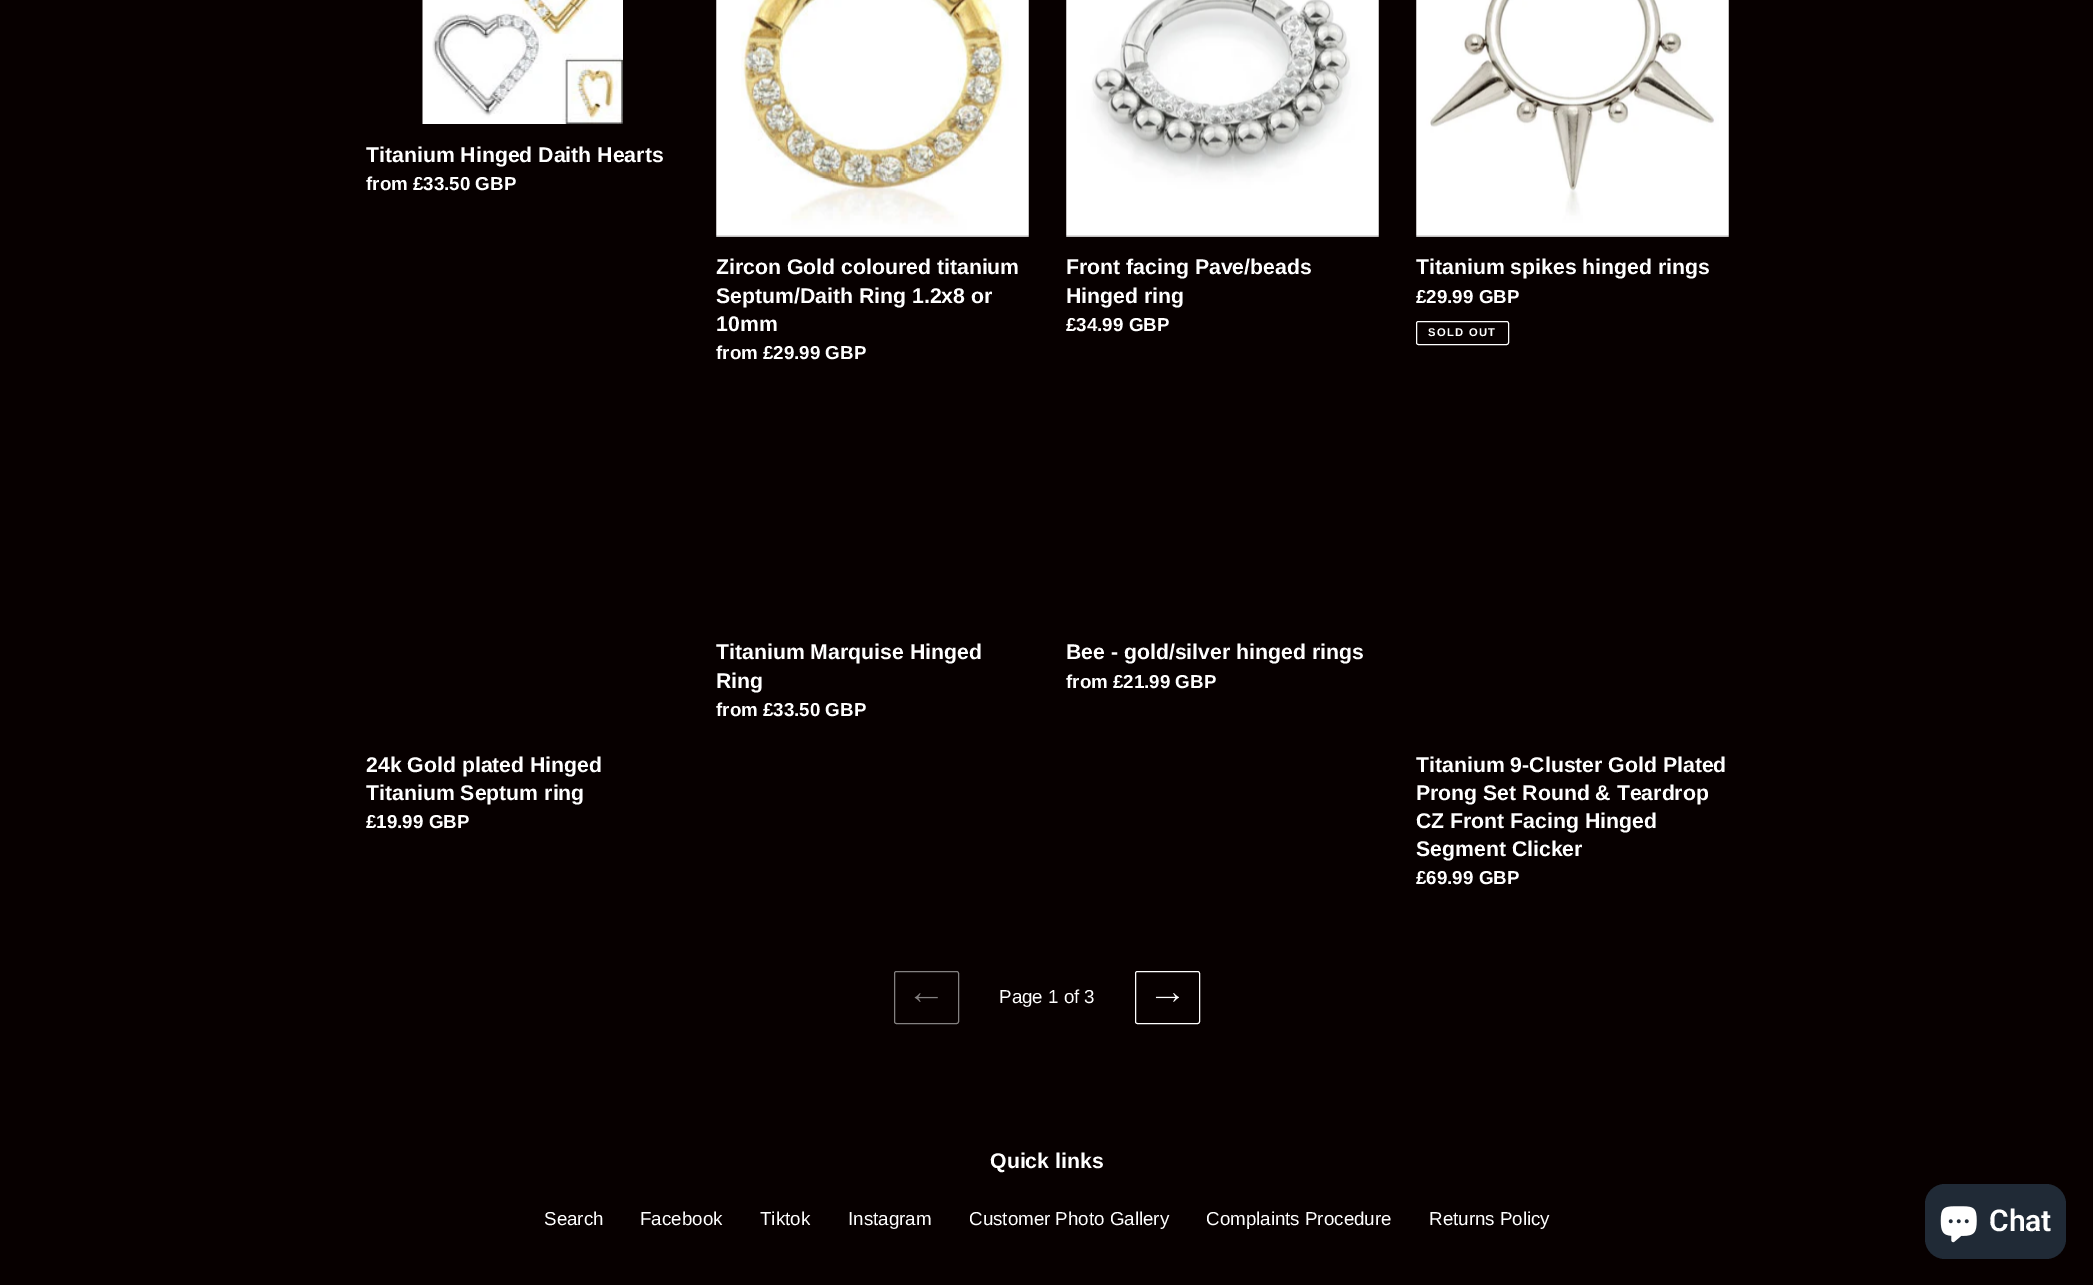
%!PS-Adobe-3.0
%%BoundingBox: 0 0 2093 1285
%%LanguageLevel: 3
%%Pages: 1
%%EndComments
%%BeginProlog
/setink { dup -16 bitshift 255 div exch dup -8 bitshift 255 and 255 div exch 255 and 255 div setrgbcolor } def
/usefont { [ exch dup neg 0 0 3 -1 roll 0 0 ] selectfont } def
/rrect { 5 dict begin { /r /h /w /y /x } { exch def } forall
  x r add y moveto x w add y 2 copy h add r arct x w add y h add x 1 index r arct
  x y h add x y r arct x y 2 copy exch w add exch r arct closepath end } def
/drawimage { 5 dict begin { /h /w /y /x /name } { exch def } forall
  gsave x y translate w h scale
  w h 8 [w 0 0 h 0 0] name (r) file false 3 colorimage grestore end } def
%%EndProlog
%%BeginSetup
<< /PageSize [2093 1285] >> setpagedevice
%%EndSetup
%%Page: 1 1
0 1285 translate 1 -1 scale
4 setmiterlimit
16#070000 setink
0 0 2093 1285 rectfill
(img1.raw) 422 0 201 124 drawimage
/LiberationSans-Bold 21.25 usefont
16#FFFFFF setink
366 162 moveto (Titanium Hinged Daith Hearts) show
/LiberationSans-Bold 18.75 usefont
366 190 moveto (from £33.50 GBP) show
(img2.raw) 716 0 313 237 drawimage
/LiberationSans-Bold 21.25 usefont
[
    [(Zircon Gold coloured titanium) 716 274]
    [(Septum/Daith Ring 1.2x8 or) 716 303]
    [(10mm) 716 331]
] { aload pop moveto show } forall
/LiberationSans-Bold 18.75 usefont
716 359 moveto (from £29.99 GBP) show
(img3.raw) 1066 0 313 237 drawimage
/LiberationSans-Bold 21.25 usefont
1066 274 moveto (Front facing Pave/beads) show
1066 303 moveto (Hinged ring) show
/LiberationSans-Bold 18.75 usefont
1066 331 moveto (£34.99 GBP) show
(img4.raw) 1416 0 313 237 drawimage
/LiberationSans-Bold 21.25 usefont
1416 274 moveto (Titanium spikes hinged rings) show
/LiberationSans-Bold 18.75 usefont
1416 303 moveto (£29.99 GBP) show
1416.5 321.5 92 23 2 rrect stroke
/LiberationSans-Bold 11.25 usefont
1428 336 moveto 1.25 0 (SOLD OUT) ashow
/LiberationSans-Bold 21.25 usefont
716 659 moveto (Titanium Marquise Hinged) show
716 688 moveto (Ring) show
/LiberationSans-Bold 18.75 usefont
716 716 moveto (from £33.50 GBP) show
/LiberationSans-Bold 21.25 usefont
1066 659 moveto (Bee - gold/silver hinged rings) show
/LiberationSans-Bold 18.75 usefont
1066 688 moveto (from £21.99 GBP) show
/LiberationSans-Bold 21.25 usefont
366 772 moveto (24k Gold plated Hinged) show
366 800 moveto (Titanium Septum ring) show
/LiberationSans-Bold 18.75 usefont
366 828 moveto (£19.99 GBP) show
/LiberationSans-Bold 21.25 usefont
[
    [(Titanium 9-Cluster Gold Plated) 1416 772]
    [(Prong Set Round & Teardrop) 1416 800]
    [(CZ Front Facing Hinged) 1416 828]
    [(Segment Clicker) 1416 856]
] { aload pop moveto show } forall
/LiberationSans-Bold 18.75 usefont
1416 884 moveto (£69.99 GBP) show
16#838080 setink
894.5 971.5 64 52 2 rrect stroke
(img5.raw) 914 993 24 9 drawimage
/LiberationSans-Regular 18.75 usefont
16#FFFFFF setink
999 1003 moveto (Page 1 of 3) show
1135.5 971.5 64 52 2 rrect stroke
(img6.raw) 1155 993 24 9 drawimage
/LiberationSans-Bold 21.25 usefont
990 1168 moveto (Quick links) show
/LiberationSans-Regular 18.75 usefont
[
    [(Search) 544 1225]
    [(Facebook) 640 1225]
    [(Tiktok) 760 1225]
    [(Instagram) 848 1225]
    [(Customer Photo Gallery) 969 1225]
    [(Complaints Procedure) 1206 1225]
    [(Returns Policy) 1429 1225]
] { aload pop moveto show } forall
16#202A36 setink
1925 1184 141 75 20 rrect fill
(img7.raw) 1940 1206 37 37 drawimage
/Roboto-SemiBold 30 usefont
16#FFFFFF setink
1989 1231 moveto (Chat) show
showpage
%%EOF
